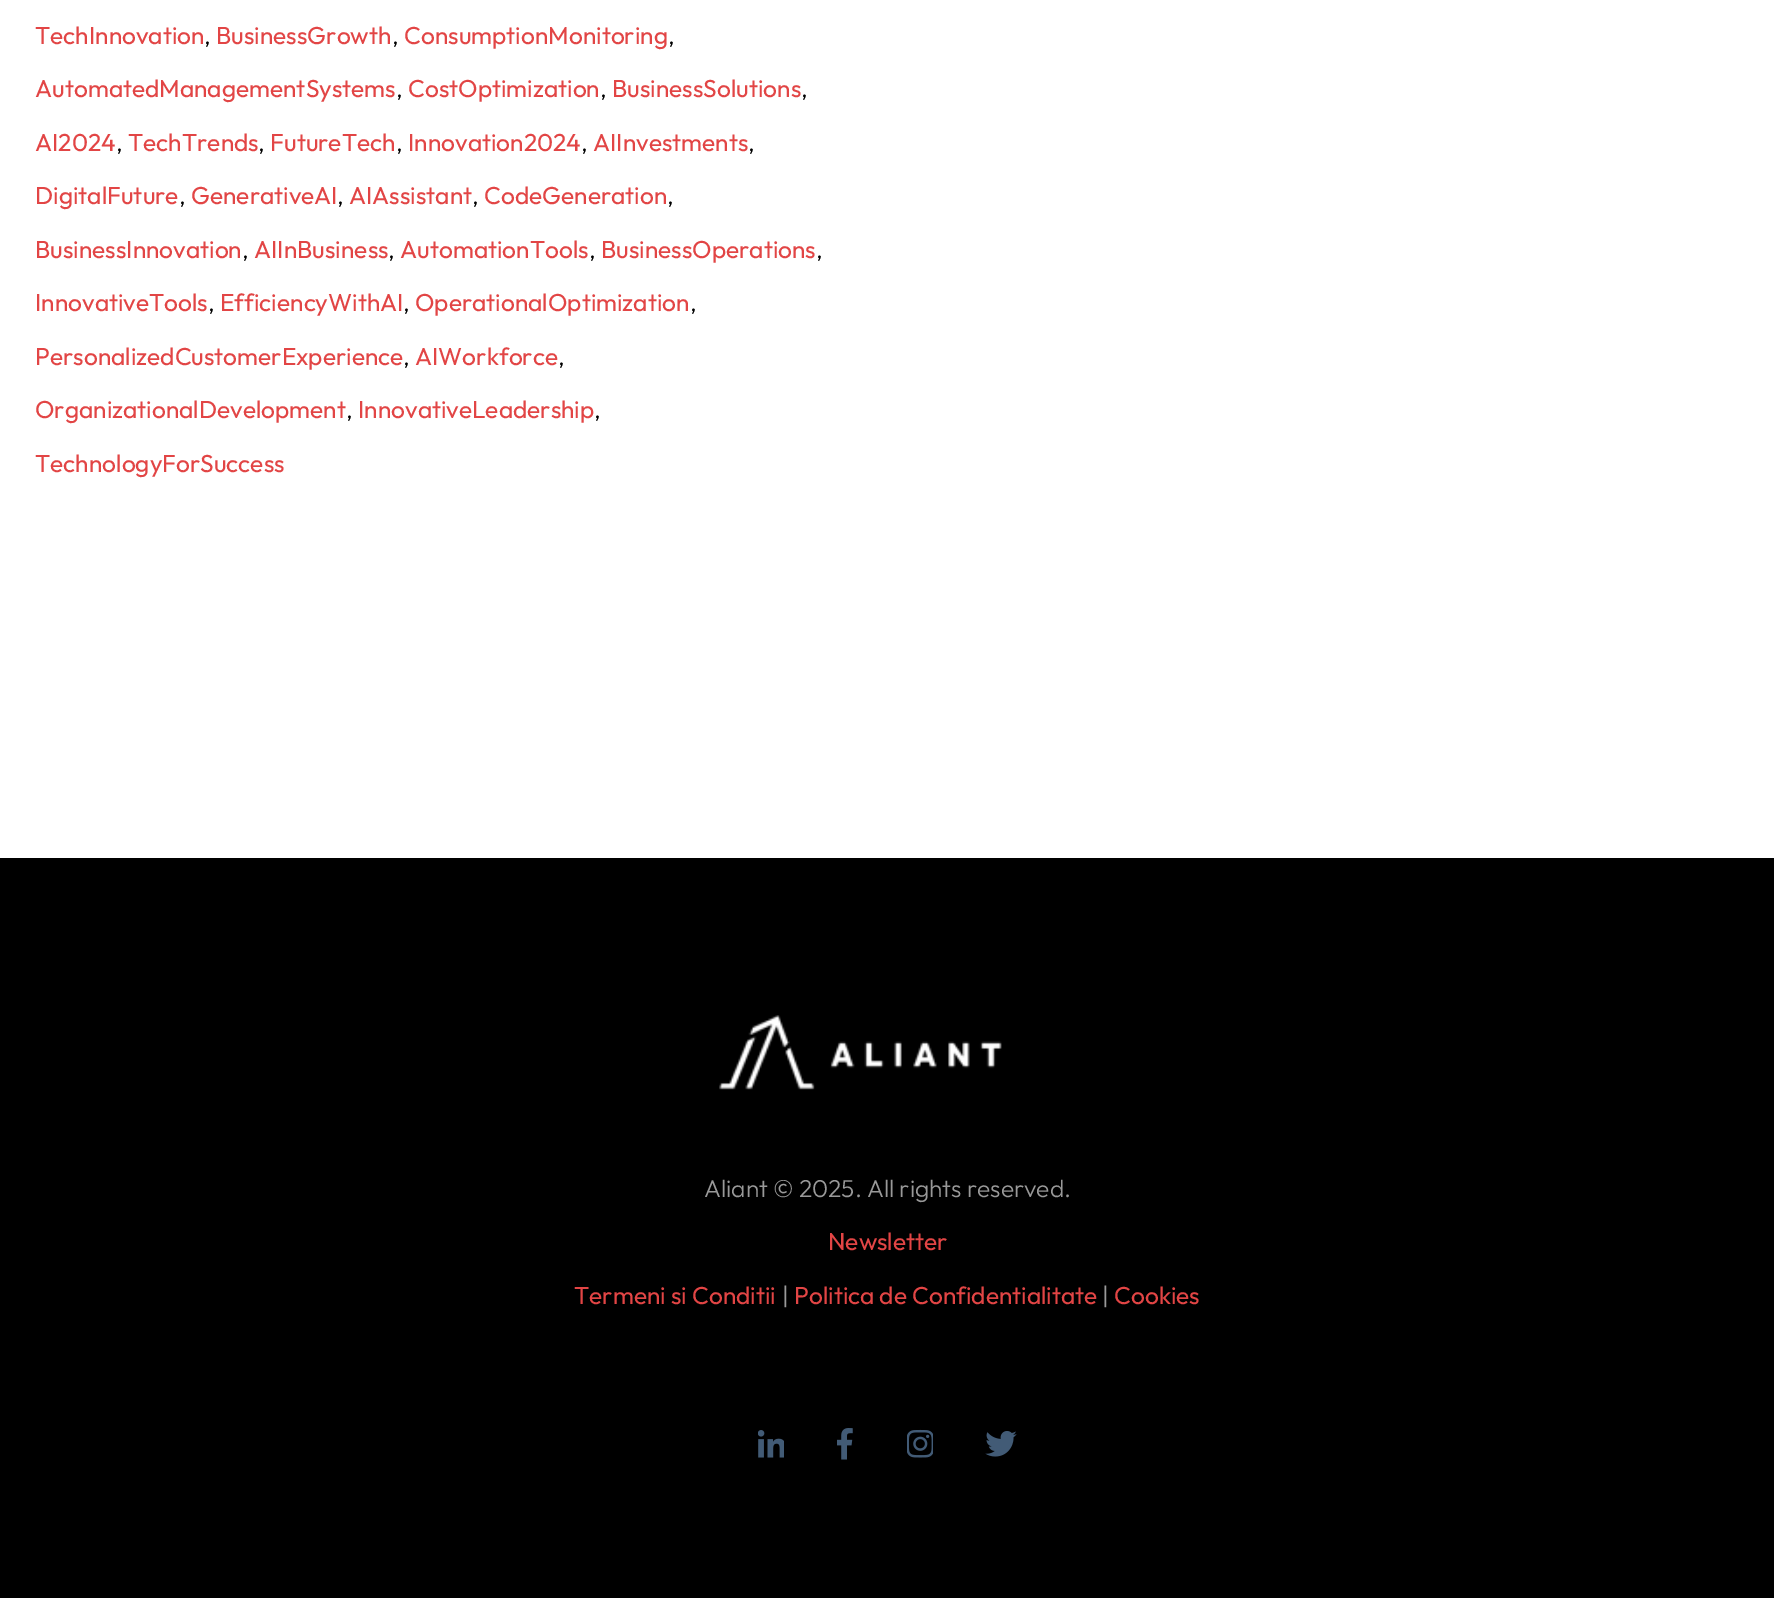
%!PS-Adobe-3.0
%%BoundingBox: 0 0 1774 1598
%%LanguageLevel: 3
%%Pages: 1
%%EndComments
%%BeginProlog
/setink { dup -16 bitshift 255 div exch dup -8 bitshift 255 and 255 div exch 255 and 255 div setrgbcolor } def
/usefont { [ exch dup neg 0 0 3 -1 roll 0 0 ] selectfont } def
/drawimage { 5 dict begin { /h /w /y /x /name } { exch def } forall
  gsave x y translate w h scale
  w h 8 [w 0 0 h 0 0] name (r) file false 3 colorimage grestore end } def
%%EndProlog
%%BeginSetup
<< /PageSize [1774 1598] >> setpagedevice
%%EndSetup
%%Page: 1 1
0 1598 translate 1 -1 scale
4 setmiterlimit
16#FFFFFF setink
0 0 1774 1598 rectfill
/Outfit-Thin 24.5 usefont
16#E24545 setink
35 44 moveto (TechInnovation) show
/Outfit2-Thin 24.5 usefont
16#000000 setink
204 44 moveto (,) show
/Outfit-Thin 24.5 usefont
16#E24545 setink
216 44 moveto (BusinessGrowth) show
/Outfit2-Thin 24.5 usefont
16#000000 setink
392 44 moveto (,) show
/Outfit-Thin 24.5 usefont
16#E24545 setink
404 44 moveto (ConsumptionMonitoring) show
/Outfit2-Thin 24.5 usefont
16#000000 setink
668 44 moveto (,) show
/Outfit-Thin 24.5 usefont
16#E24545 setink
35 97 moveto (AutomatedManagementSystems) show
/Outfit2-Thin 24.5 usefont
16#000000 setink
396 97 moveto (,) show
/Outfit-Thin 24.5 usefont
16#E24545 setink
408 97 moveto (CostOptimization) show
/Outfit2-Thin 24.5 usefont
16#000000 setink
600 97 moveto (,) show
/Outfit-Thin 24.5 usefont
16#E24545 setink
612 97 moveto (BusinessSolutions) show
/Outfit2-Thin 24.5 usefont
16#000000 setink
801 97 moveto (,) show
/Outfit-Thin 24.5 usefont
16#E24545 setink
35 151 moveto (AI2024) show
/Outfit2-Thin 24.5 usefont
16#000000 setink
116 151 moveto (,) show
/Outfit-Thin 24.5 usefont
16#E24545 setink
128 151 moveto (TechTrends) show
/Outfit2-Thin 24.5 usefont
16#000000 setink
258 151 moveto (,) show
/Outfit-Thin 24.5 usefont
16#E24545 setink
270 151 moveto (FutureTech) show
/Outfit2-Thin 24.5 usefont
16#000000 setink
396 151 moveto (,) show
/Outfit-Thin 24.5 usefont
16#E24545 setink
408 151 moveto (Innovation2024) show
/Outfit2-Thin 24.5 usefont
16#000000 setink
581 151 moveto (,) show
/Outfit-Thin 24.5 usefont
16#E24545 setink
593 151 moveto (AIInvestments) show
/Outfit2-Thin 24.5 usefont
16#000000 setink
748 151 moveto (,) show
/Outfit-Thin 24.5 usefont
16#E24545 setink
35 204 moveto (DigitalFuture) show
/Outfit2-Thin 24.5 usefont
16#000000 setink
179 204 moveto (,) show
/Outfit-Thin 24.5 usefont
16#E24545 setink
191 204 moveto (GenerativeAI) show
/Outfit2-Thin 24.5 usefont
16#000000 setink
337 204 moveto (,) show
/Outfit-Thin 24.5 usefont
16#E24545 setink
349 204 moveto (AIAssistant) show
/Outfit2-Thin 24.5 usefont
16#000000 setink
472 204 moveto (,) show
/Outfit-Thin 24.5 usefont
16#E24545 setink
484 204 moveto (CodeGeneration) show
/Outfit2-Thin 24.5 usefont
16#000000 setink
667 204 moveto (,) show
/Outfit-Thin 24.5 usefont
16#E24545 setink
35 258 moveto (BusinessInnovation) show
/Outfit2-Thin 24.5 usefont
16#000000 setink
242 258 moveto (,) show
/Outfit-Thin 24.5 usefont
16#E24545 setink
254 258 moveto (AIInBusiness) show
/Outfit2-Thin 24.5 usefont
16#000000 setink
388 258 moveto (,) show
/Outfit-Thin 24.5 usefont
16#E24545 setink
400 258 moveto (AutomationTools) show
/Outfit2-Thin 24.5 usefont
16#000000 setink
589 258 moveto (,) show
/Outfit-Thin 24.5 usefont
16#E24545 setink
601 258 moveto (BusinessOperations) show
/Outfit2-Thin 24.5 usefont
16#000000 setink
816 258 moveto (,) show
/Outfit-Thin 24.5 usefont
16#E24545 setink
35 311 moveto (InnovativeTools) show
/Outfit2-Thin 24.5 usefont
16#000000 setink
208 311 moveto (,) show
/Outfit-Thin 24.5 usefont
16#E24545 setink
220 311 moveto (EfficiencyWithAI) show
/Outfit2-Thin 24.5 usefont
16#000000 setink
403 311 moveto (,) show
/Outfit-Thin 24.5 usefont
16#E24545 setink
415 311 moveto (OperationalOptimization) show
/Outfit2-Thin 24.5 usefont
16#000000 setink
690 311 moveto (,) show
/Outfit-Thin 24.5 usefont
16#E24545 setink
35 365 moveto (PersonalizedCustomerExperience) show
/Outfit2-Thin 24.5 usefont
16#000000 setink
403 365 moveto (,) show
/Outfit-Thin 24.5 usefont
16#E24545 setink
415 365 moveto (AIWorkforce) show
/Outfit2-Thin 24.5 usefont
16#000000 setink
558 365 moveto (,) show
/Outfit-Thin 24.5 usefont
16#E24545 setink
35 418 moveto (OrganizationalDevelopment) show
/Outfit2-Thin 24.5 usefont
16#000000 setink
346 418 moveto (,) show
/Outfit-Thin 24.5 usefont
16#E24545 setink
358 418 moveto (InnovativeLeadership) show
/Outfit2-Thin 24.5 usefont
16#000000 setink
594 418 moveto (,) show
/Outfit-Thin 24.5 usefont
16#E24545 setink
35 472 moveto (TechnologyForSuccess) show
16#000000 setink
0 858 1774 740 rectfill
(img1.raw) 719 1015 283 75 drawimage
/Outfit2-Thin 24.5 usefont
16#999999 setink
704 1197 moveto (Aliant © 2025. All rights reserved.) show
/Outfit-Thin 24.5 usefont
16#E24545 setink
828 1250 moveto (Newsletter) show
574 1304 moveto (Termeni si Conditii) show
/Outfit2-Thin 24.5 usefont
16#999999 setink
782 1304 moveto (|) show
/Outfit-Thin 24.5 usefont
16#E24545 setink
794 1304 moveto (Politica de Confidentialitate) show
/Outfit2-Thin 24.5 usefont
16#999999 setink
1102 1304 moveto (|) show
/Outfit-Thin 24.5 usefont
16#E24545 setink
1114 1304 moveto (Cookies) show
(img2.raw) 758 1430 26 28 drawimage
(img3.raw) 837 1428 16 32 drawimage
(img4.raw) 907 1429 26 29 drawimage
(img5.raw) 985 1431 32 26 drawimage
showpage
%%EOF
